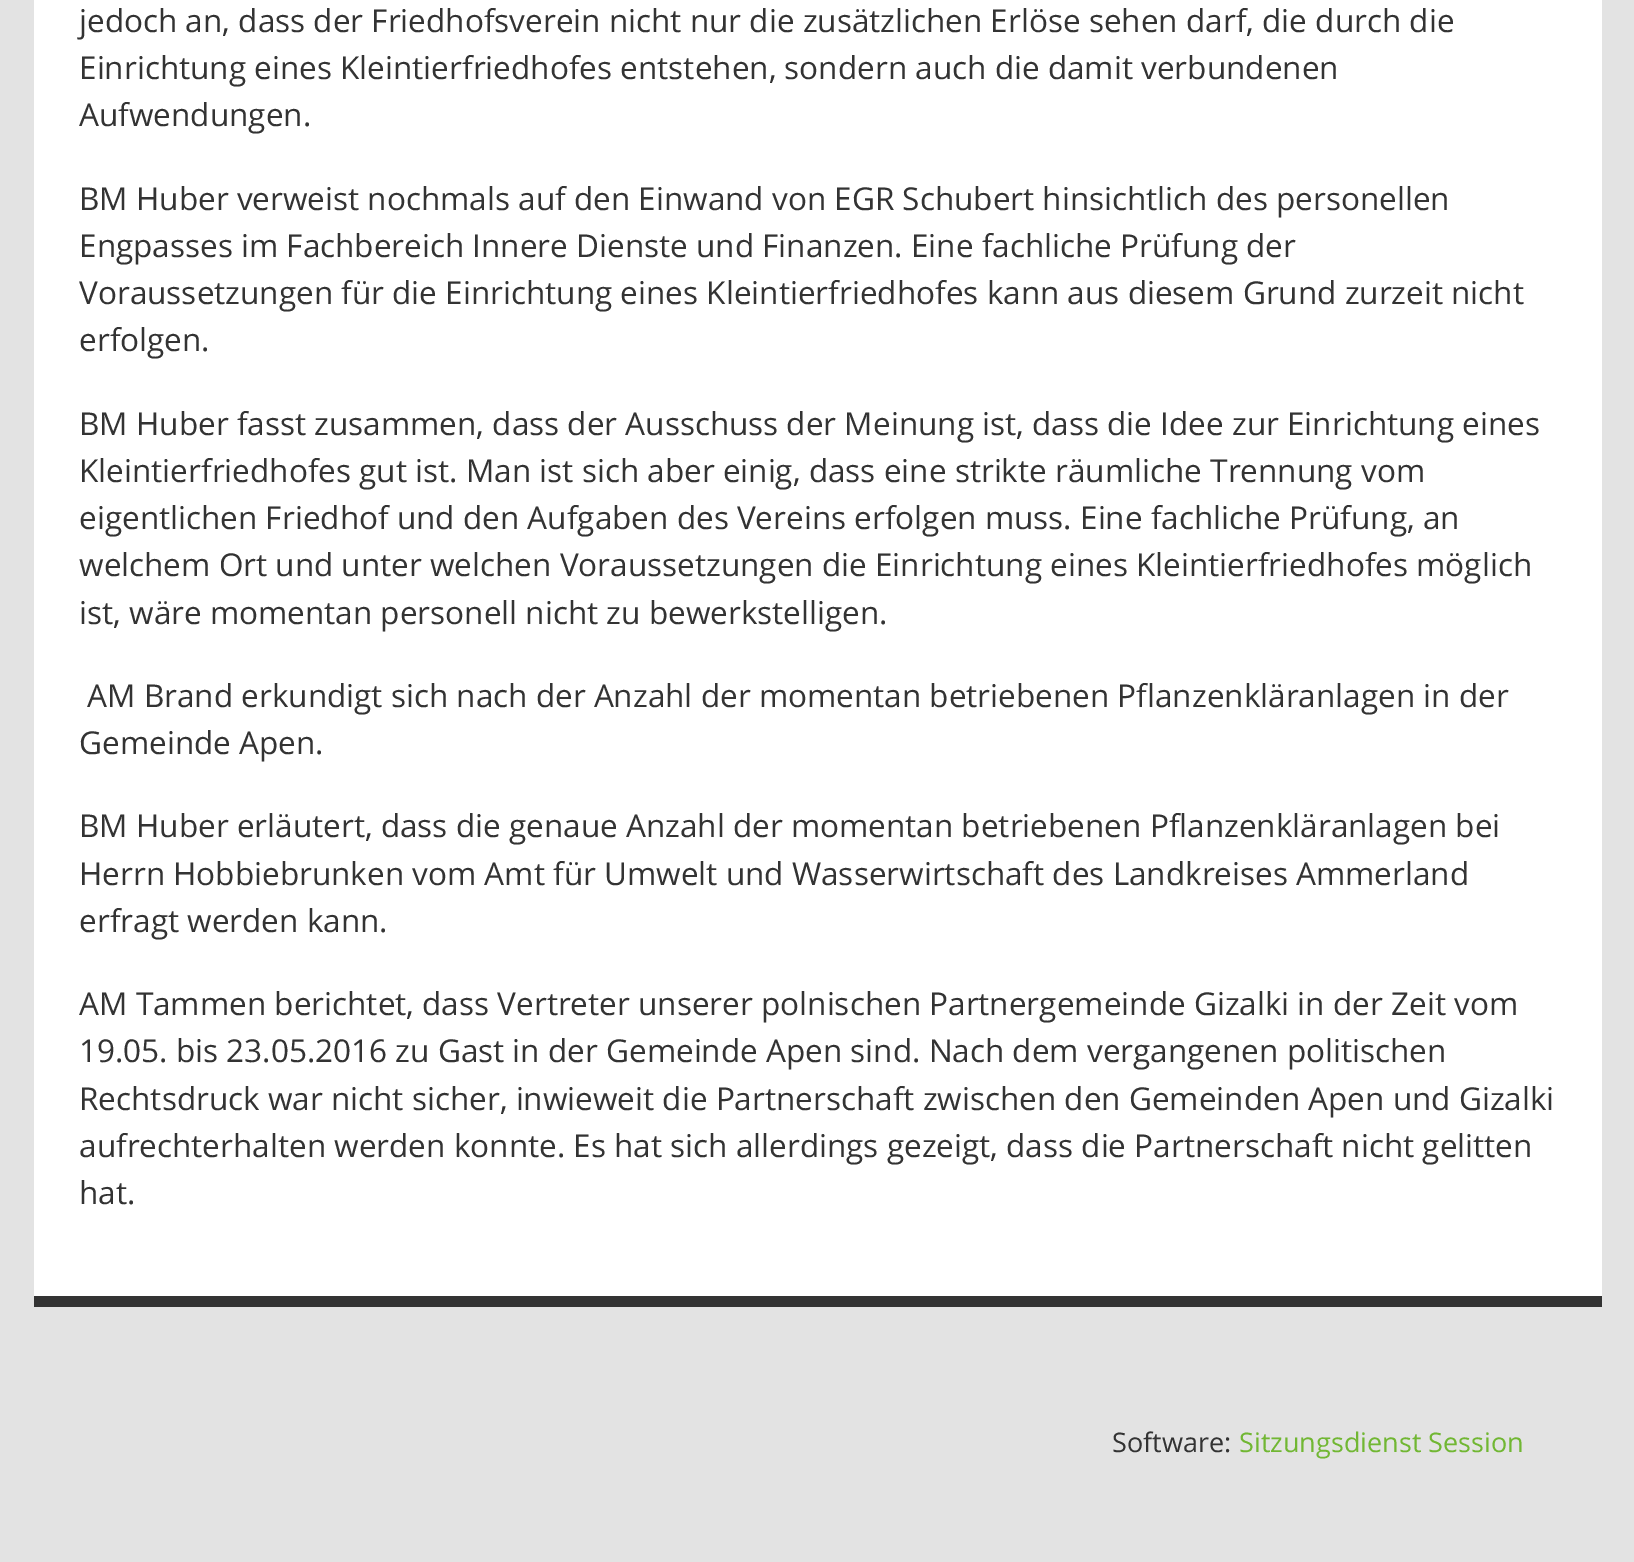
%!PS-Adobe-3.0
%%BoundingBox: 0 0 1634 1562
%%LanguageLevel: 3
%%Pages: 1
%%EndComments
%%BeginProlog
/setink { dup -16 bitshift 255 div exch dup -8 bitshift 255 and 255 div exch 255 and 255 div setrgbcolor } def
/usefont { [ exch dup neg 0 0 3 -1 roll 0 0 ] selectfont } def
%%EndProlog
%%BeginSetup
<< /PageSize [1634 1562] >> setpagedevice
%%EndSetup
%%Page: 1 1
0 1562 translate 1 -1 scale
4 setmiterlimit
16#E3E3E3 setink
0 0 1634 1562 rectfill
16#FFFFFF setink
34 0 1568 1296 rectfill
16#333333 setink
34 1296 1568 11 rectfill
/OpenSans-Regular 31.5 usefont
[
    [(jedoch an, dass der Friedhofsverein nicht nur die zusätzlichen Erlöse sehen darf, die durch die) 79 32]
    [(Einrichtung eines Kleintierfriedhofes entstehen, sondern auch die damit verbundenen) 79 79]
    [(Aufwendungen.) 79 126]
    [(BM Huber verweist nochmals auf den Einwand von EGR Schubert hinsichtlich des personellen) 79 210]
    [(Engpasses im Fachbereich Innere Dienste und Finanzen. Eine fachliche Prüfung der) 79 257]
    [(Voraussetzungen für die Einrichtung eines Kleintierfriedhofes kann aus diesem Grund zurzeit nicht) 79 304]
    [(erfolgen.) 79 351]
    [(BM Huber fasst zusammen, dass der Ausschuss der Meinung ist, dass die Idee zur Einrichtung eines) 79 435]
    [(Kleintierfriedhofes gut ist. Man ist sich aber einig, dass eine strikte räumliche Trennung vom) 79 482]
    [(eigentlichen Friedhof und den Aufgaben des Vereins erfolgen muss. Eine fachliche Prüfung, an) 79 529]
    [(welchem Ort und unter welchen Voraussetzungen die Einrichtung eines Kleintierfriedhofes möglich) 79 576]
    [(ist, wäre momentan personell nicht zu bewerkstelligen.) 79 624]
    [(AM Brand erkundigt sich nach der Anzahl der momentan betriebenen Pflanzenkläranlagen in der) 87 707]
    [(Gemeinde Apen.) 79 754]
    [(BM Huber erläutert, dass die genaue Anzahl der momentan betriebenen Pflanzenkläranlagen bei) 79 837]
    [(Herrn Hobbiebrunken vom Amt für Umwelt und Wasserwirtschaft des Landkreises Ammerland) 79 885]
    [(erfragt werden kann.) 79 932]
    [(AM Tammen berichtet, dass Vertreter unserer polnischen Partnergemeinde Gizalki in der Zeit vom) 79 1015]
    [(19.05. bis 23.05.2016 zu Gast in der Gemeinde Apen sind. Nach dem vergangenen politischen) 79 1062]
    [(Rechtsdruck war nicht sicher, inwieweit die Partnerschaft zwischen den Gemeinden Apen und Gizalki) 79 1110]
    [(aufrechterhalten werden konnte. Es hat sich allerdings gezeigt, dass die Partnerschaft nicht gelitten) 79 1157]
    [(hat.) 79 1204]
] { aload pop moveto show } forall
/OpenSans-Regular 27 usefont
1112 1452 moveto (Software:) show
16#71B733 setink
1239 1452 moveto (Sitzungsdienst Session) show
showpage
%%EOF
